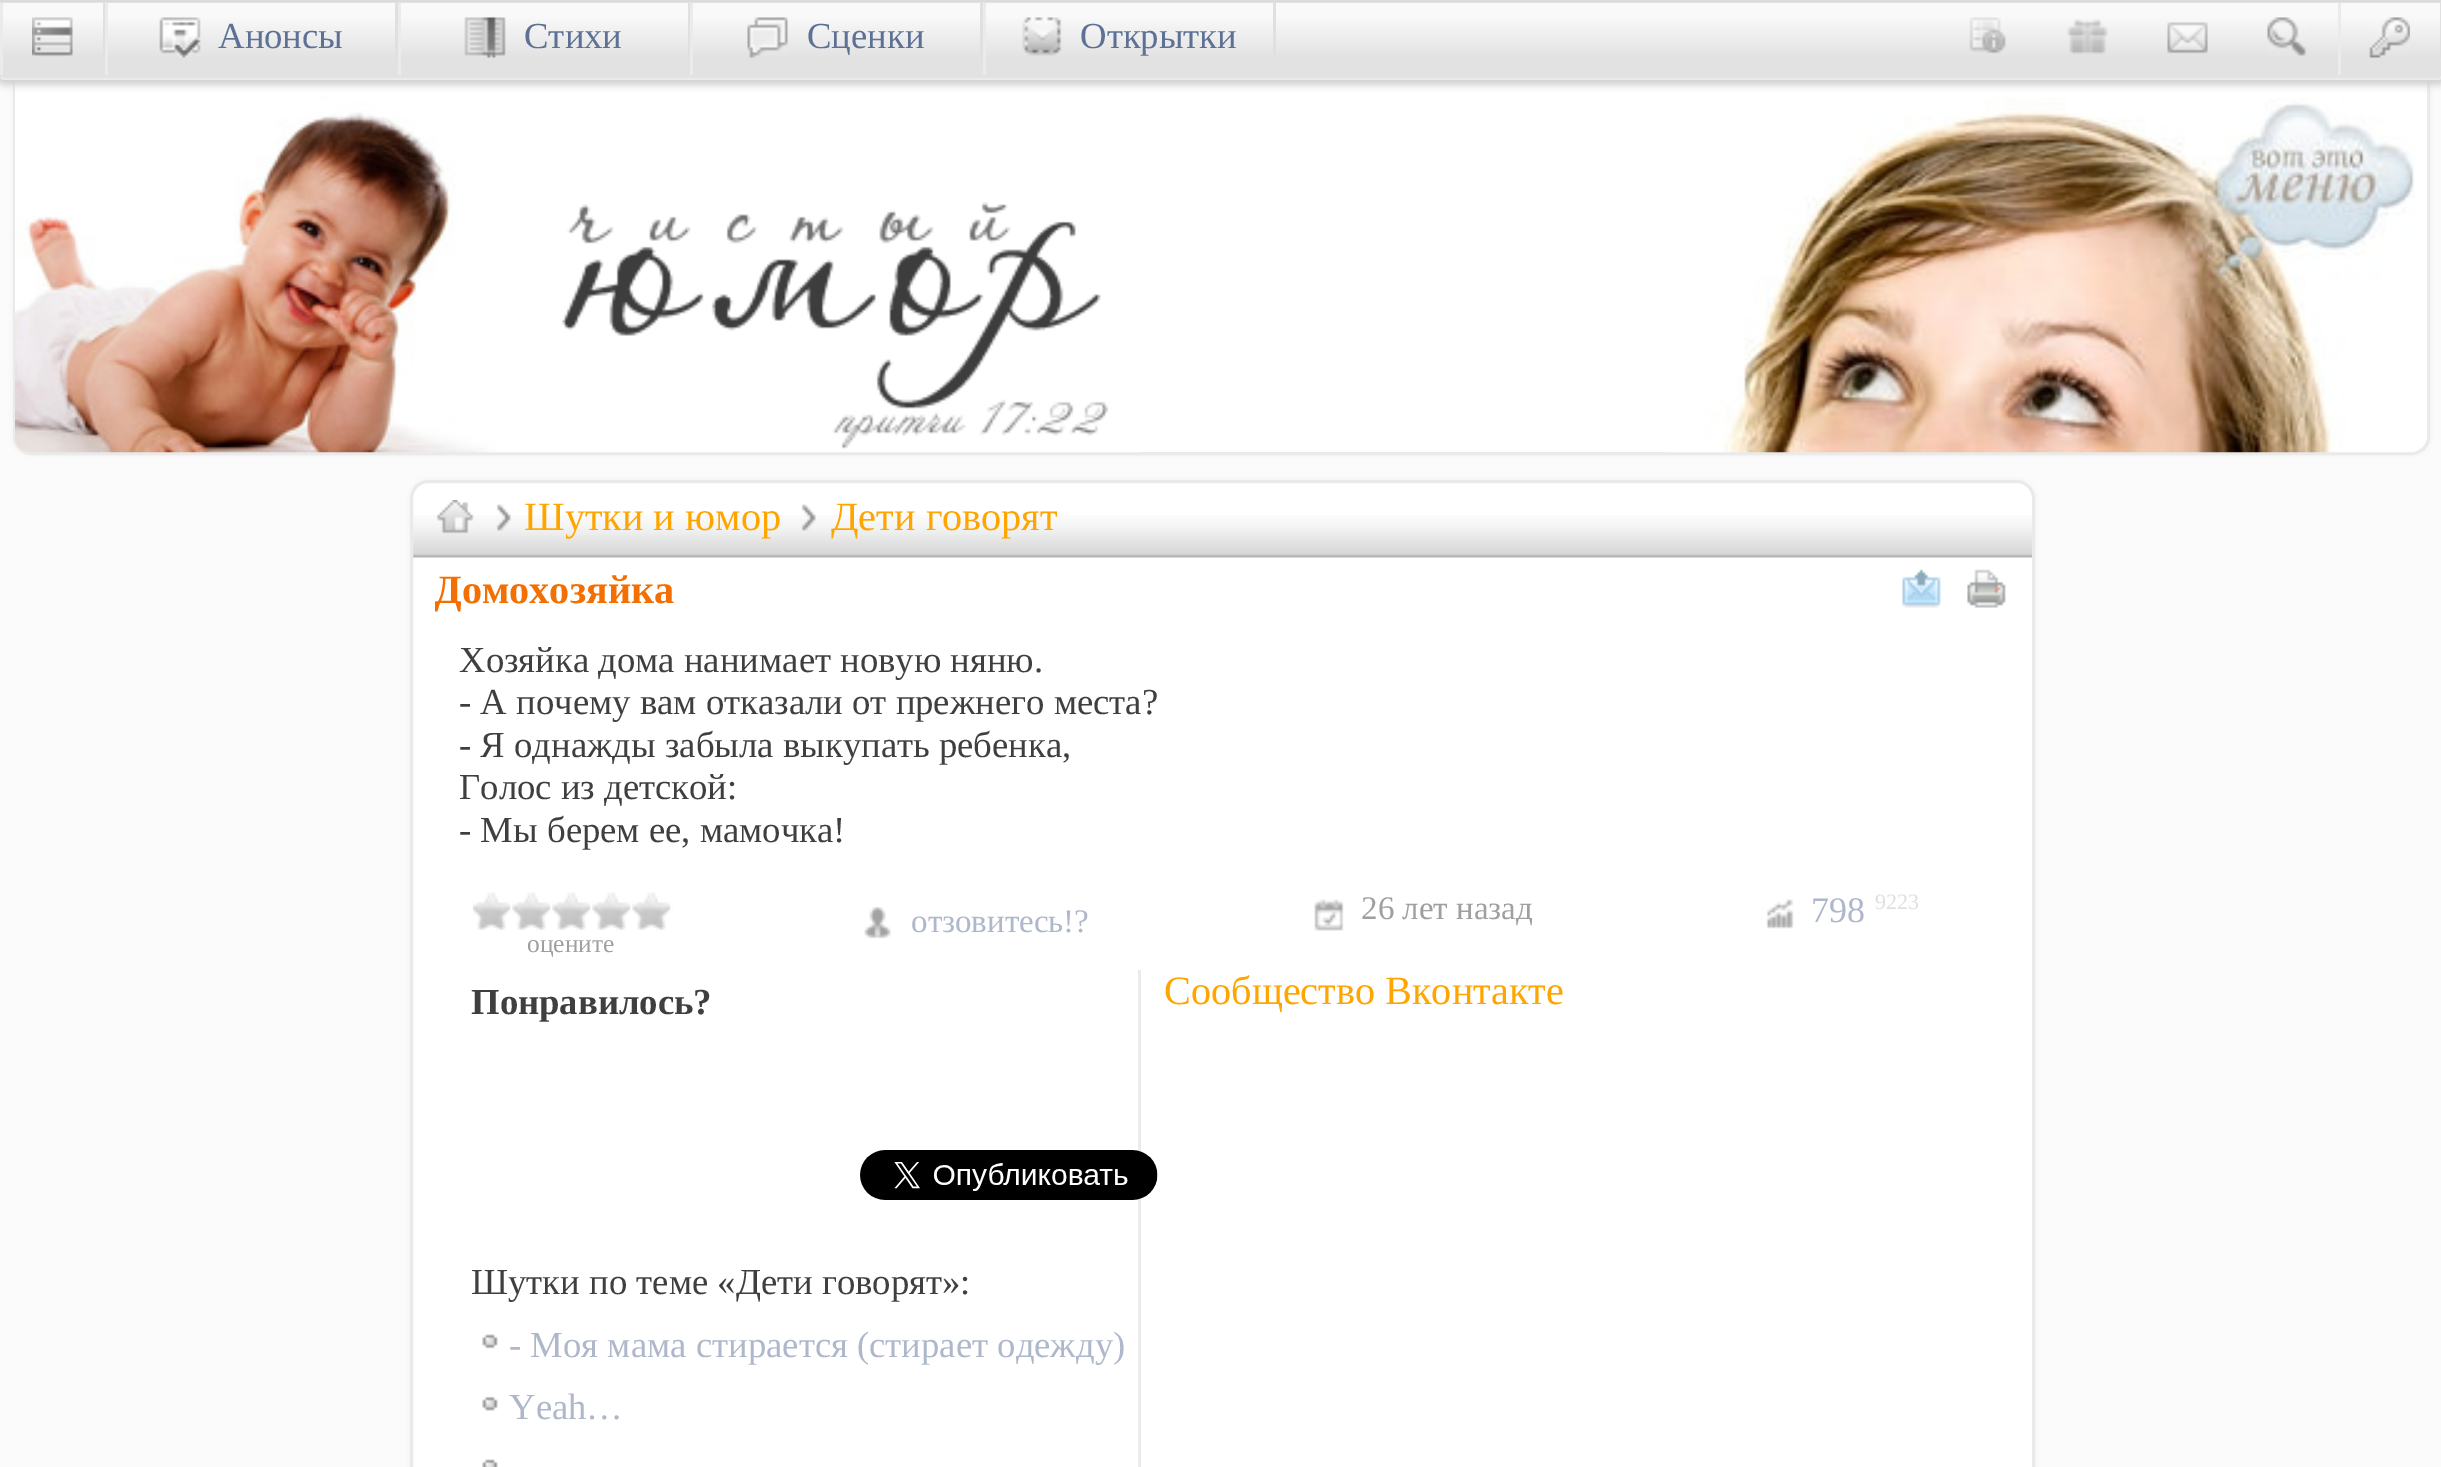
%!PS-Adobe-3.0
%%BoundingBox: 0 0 2441 1467
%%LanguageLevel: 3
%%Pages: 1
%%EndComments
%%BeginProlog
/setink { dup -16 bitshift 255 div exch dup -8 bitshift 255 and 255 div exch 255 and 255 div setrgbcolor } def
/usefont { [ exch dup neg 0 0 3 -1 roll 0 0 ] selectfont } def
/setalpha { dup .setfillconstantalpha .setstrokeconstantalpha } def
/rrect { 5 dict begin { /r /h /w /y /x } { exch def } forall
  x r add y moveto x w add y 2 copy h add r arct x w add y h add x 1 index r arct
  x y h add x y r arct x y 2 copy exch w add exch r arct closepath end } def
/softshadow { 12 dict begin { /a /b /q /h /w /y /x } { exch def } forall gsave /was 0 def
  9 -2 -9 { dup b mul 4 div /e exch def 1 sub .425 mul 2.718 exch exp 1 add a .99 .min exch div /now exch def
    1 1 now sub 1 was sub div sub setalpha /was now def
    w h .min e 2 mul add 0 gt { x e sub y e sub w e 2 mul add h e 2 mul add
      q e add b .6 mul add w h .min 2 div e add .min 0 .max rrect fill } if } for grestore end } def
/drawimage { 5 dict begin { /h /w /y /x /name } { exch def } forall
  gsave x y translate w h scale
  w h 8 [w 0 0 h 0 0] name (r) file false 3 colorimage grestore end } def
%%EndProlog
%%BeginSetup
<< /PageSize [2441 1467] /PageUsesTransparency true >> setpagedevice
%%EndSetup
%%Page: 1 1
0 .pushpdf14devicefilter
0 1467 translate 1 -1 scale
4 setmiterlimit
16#FBFBFB setink
0 0 2441 1467 rectfill
16#E5E5E5 setink
13 25 2417 430 18 4 0.5 softshadow
16#FFFFFF setink
14.5 26.5 2414 427 16.5 rrect gsave fill grestore
16#EAEAEA setink
3 setlinewidth
stroke
(img11.raw) 15 80 500 373 drawimage
16#CECECE setink
-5 0 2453 85 10 4 1 softshadow
gsave 0 2 moveto 2441 2 lineto 2441 3 lineto 0 3 lineto closepath clip newpath
<< /ShadingType 2 /ColorSpace /DeviceRGB /Coords [1221 -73 1221 2.5] /Extend [true true] /Function << /FunctionType 3 /Domain [0 1] /Functions [<< /FunctionType 2 /Domain [0 1] /C0 [0.976 0.976 0.976] /C1 [0.976 0.976 0.976] /N 1 >> << /FunctionType 2 /Domain [0 1] /C0 [0.976 0.976 0.976] /C1 [0.886 0.886 0.886] /N 1 >> << /FunctionType 2 /Domain [0 1] /C0 [0.886 0.886 0.886] /C1 [0.886 0.886 0.886] /N 1 >>] /Bounds [0.19 0.75] /Encode [0 1 0 1 0 1] >> >> shfill grestore
gsave 0 3 moveto 2441 3 lineto 2441 78 lineto 0 78 lineto closepath clip newpath
<< /ShadingType 2 /ColorSpace /DeviceRGB /Coords [1221 2.5 1221 78] /Extend [true true] /Function << /FunctionType 3 /Domain [0 1] /Functions [<< /FunctionType 2 /Domain [0 1] /C0 [0.976 0.976 0.976] /C1 [0.976 0.976 0.976] /N 1 >> << /FunctionType 2 /Domain [0 1] /C0 [0.976 0.976 0.976] /C1 [0.886 0.886 0.886] /N 1 >> << /FunctionType 2 /Domain [0 1] /C0 [0.886 0.886 0.886] /C1 [0.886 0.886 0.886] /N 1 >>] /Bounds [0.19 0.75] /Encode [0 1 0 1 0 1] >> >> shfill grestore
16#DBDBDB setink
-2 0 moveto 0 2 lineto 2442 2 lineto 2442 3 lineto 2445 0 lineto closepath fill
16#EBEBEB setink
5 80 moveto 2438 80 lineto 2440 80 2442 79 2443 78 curveto 2441 76 lineto 2440 77 2439 78 2438 78 curveto 5 78 lineto 4 78 2 77 1 76 curveto 0 78 lineto 1 79 3 80 5 80 curveto closepath fill
16#DBDBDB setink
-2 0 moveto -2 72 lineto -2 74 -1 76 0 78 curveto 1 76 lineto 0 75 0 74 0 72 curveto 0 2 lineto closepath fill
16#E0E0E0 setink
103 3 2 55 rectfill
16#EBEBEB setink
0 3 3 72 rectfill
(img1.raw) 32 17 41 40 drawimage
16#E0E0E0 setink
395 3 3 55 rectfill
16#EBEBEB setink
105 3 3 72 rectfill
(img2.raw) 159 17 42 41 drawimage
/LiberationSerif-Regular 36.7 usefont
16#5D7195 setink
218 48 moveto (Анонсы) show
16#E0E0E0 setink
688 3 2 55 rectfill
16#EBEBEB setink
398 3 3 72 rectfill
(img3.raw) 464 17 42 41 drawimage
16#5D7195 setink
524 48 moveto (Стихи) show
16#E0E0E0 setink
980 3 3 55 rectfill
16#EBEBEB setink
690 3 3 72 rectfill
(img4.raw) 747 17 41 41 drawimage
16#5D7195 setink
807 48 moveto (Сценки) show
16#E0E0E0 setink
1273 3 3 55 rectfill
16#EBEBEB setink
983 3 3 72 rectfill
(img5.raw) 1022 17 40 39 drawimage
16#5D7195 setink
1080 48 moveto (Открытки) show
(img6.raw) 1969 17 38 37 drawimage
(img7.raw) 2067 19 41 36 drawimage
(img8.raw) 2167 22 41 32 drawimage
(img9.raw) 2267 17 40 39 drawimage
16#E0E0E0 setink
2440 3 1 55 rectfill
16#EBEBEB setink
2338 3 3 72 rectfill
(img10.raw) 2369 17 41 41 drawimage
(img12.raw) 515 202 625 251 drawimage
(img13.raw) 1665 98 750 355 drawimage
16#E5E5E5 setink
410 480 1625 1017 18 4 0.5 softshadow
16#FFFFFF setink
410 480 1625 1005 18 rrect fill
(img14.raw) 413 515 1619 43 drawimage
16#EAEAEA setink
411.5 481.5 1622 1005 16.5 rrect stroke
(img15.raw) 436 500 38 34 drawimage
(img16.raw) 496 504 15 27 drawimage
/LiberationSerif-Regular 40.25 usefont
16#FFA500 setink
524 530 moveto (Шутки и юмор) show
(img17.raw) 801 504 15 27 drawimage
831 530 moveto (Дети говорят) show
gsave
435 568 1455 45 rectclip
/LiberationSerif-Bold 40.25 usefont
16#F36F01 setink
434 603 moveto (Домохозяйка) show
grestore
(img18.raw) 1902 569 39 39 drawimage
(img19.raw) 1967 569 39 39 drawimage
/LiberationSerif-Regular 36.7 usefont
16#3F3F3F setink
[
    [(Хозяйка дома нанимает новую няню.) 459 672]
    [(- А почему вам отказали от прежнего места?) 459 714]
    [(- Я однажды забыла выкупать ребенка,) 459 757]
    [(Голос из детской:) 459 799]
    [(- Мы берем ее, мамочка!) 459 842]
] { aload pop moveto show } forall
(img20.raw) 864 907 27 32 drawimage
/LiberationSerif-Regular 33 usefont
16#AEB8CA setink
911 932 moveto (отзовитесь!?) show
(img21.raw) 1314 899 30 32 drawimage
16#9F9F9F setink
1361 919 moveto (26 лет назад) show
(img22.raw) 1766 899 28 30 drawimage
/LiberationSerif-Regular 36 usefont
16#AEB8CA setink
1811 922 moveto (798) show
/LiberationSerif-Regular 22 usefont
16#DFDFDF setink
1875 909 moveto (9223) show
(img23.raw) 472 892 201 38 drawimage
/LiberationSerif-Regular 25.5 usefont
16#9F9F9F setink
527 952 moveto (оцените) show
/LiberationSerif-Bold 36.7 usefont
16#3F3F3F setink
471 1014 moveto (Понравилось?) show
16#EAEBEB setink
1138 970 3 497 rectfill
(img24.raw) 860 1150 298 50 drawimage
/LiberationSerif-Regular 36.7 usefont
16#3F3F3F setink
471 1294 moveto (Шутки по теме «Дети говорят»:) show
(img25.raw) 482 1334 16 15 drawimage
16#AEB8CA setink
509 1357 moveto (- Моя мама стирается \(стирает одежду\)) show
(img26.raw) 482 1396 16 15 drawimage
509 1419 moveto (Yeah…) show
(img27.raw) 482 1459 16 8 drawimage
/LiberationSerif-Regular 40.25 usefont
16#FFA500 setink
1164 1004 moveto (Сообщество Вконтакте) show
.poppdf14devicefilter showpage
%%EOF
